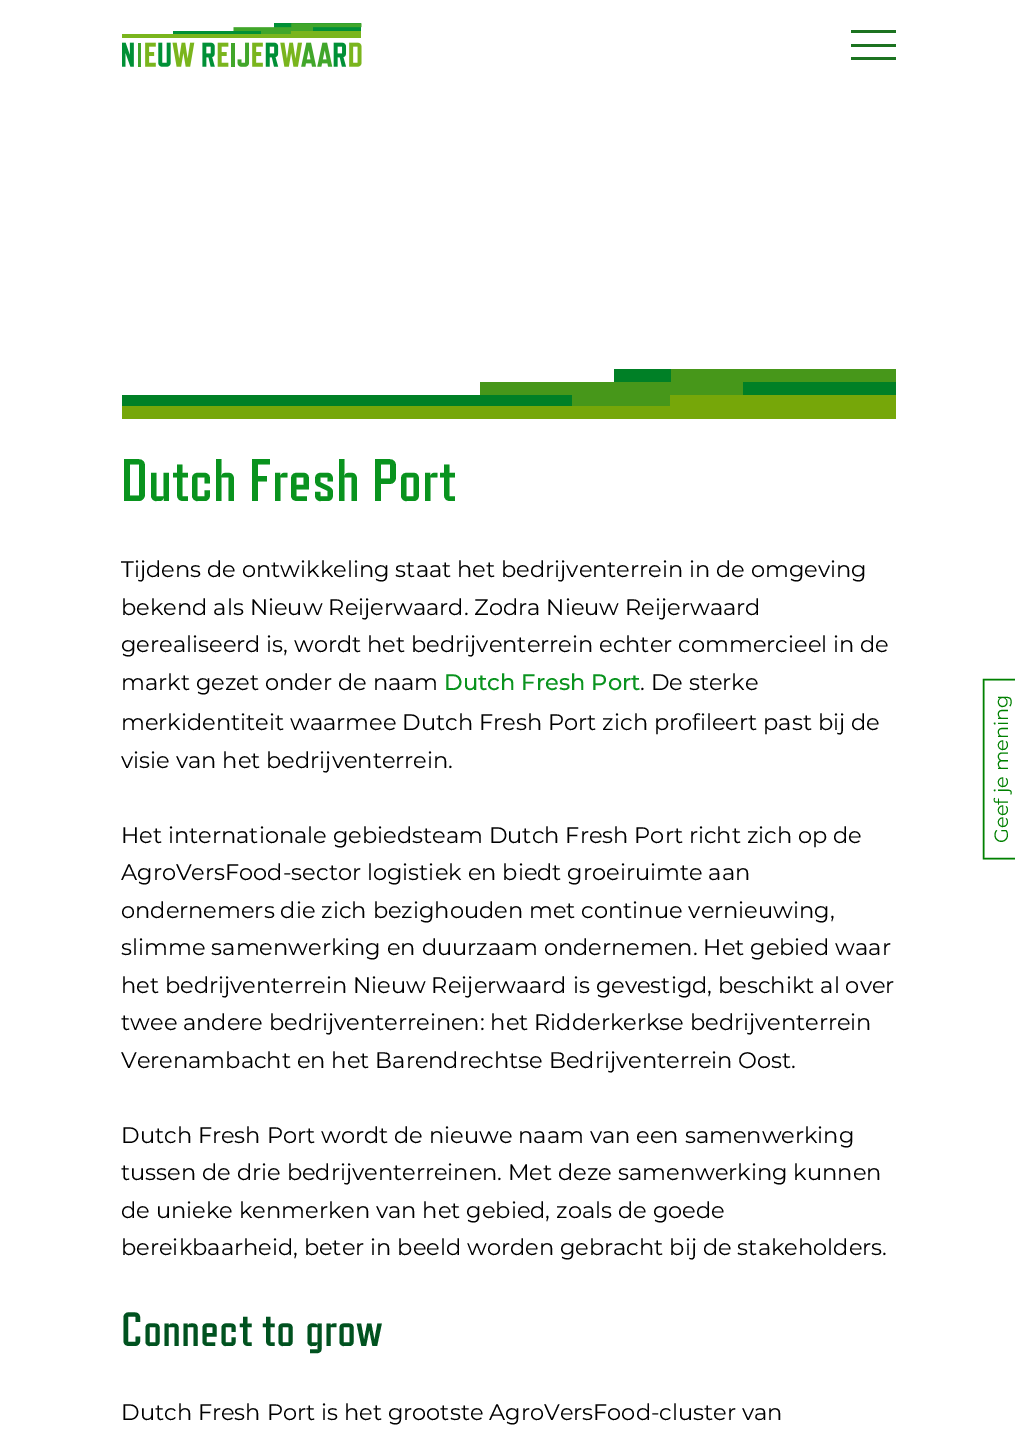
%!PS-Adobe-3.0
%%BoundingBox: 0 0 1015 1448
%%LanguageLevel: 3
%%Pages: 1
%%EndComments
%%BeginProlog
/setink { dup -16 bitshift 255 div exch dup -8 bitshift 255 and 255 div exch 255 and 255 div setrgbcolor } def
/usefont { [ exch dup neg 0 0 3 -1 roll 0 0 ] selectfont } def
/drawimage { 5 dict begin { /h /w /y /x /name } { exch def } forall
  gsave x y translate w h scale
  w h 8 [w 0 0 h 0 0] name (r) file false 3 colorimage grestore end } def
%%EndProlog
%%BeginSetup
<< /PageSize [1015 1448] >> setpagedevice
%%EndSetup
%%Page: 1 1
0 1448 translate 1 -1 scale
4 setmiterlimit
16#FFFFFF setink
0 0 1015 1448 rectfill
(img1.raw) 122 23 240 44 drawimage
[
    [851 30 45 3 16#1C7320]
    [851 44 45 3 16#1C7320]
    [851 57 45 3 16#1C7320]
    [614 369 282 26 16#008026]
] { aload pop setink rectfill } forall
gsave
122 369 774 51 rectclip
16#47971A setink
671 369 moveto 671 382 lineto 480 382 lineto 480 410 lineto 743 410 lineto 743 382 lineto 903 382 lineto 903 369 lineto closepath fill
grestore
122 395 450 11 rectfill
gsave
122 369 774 51 rectclip
16#76A709 setink
903 406 moveto 903 395 lineto 670 395 lineto 670 406 lineto -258 406 lineto -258 419 lineto 903 419 lineto closepath fill
grestore
/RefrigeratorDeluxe-Bold 60 usefont
16#09931E setink
121 501 moveto (Dutch Fresh Port) show
/Montserrat-Regular 22.5 usefont
16#000000 setink
[
    [(Tijdens de ontwikkeling staat het bedrijventerrein in de omgeving) 121 577]
    [(bekend als Nieuw Reijerwaard. Zodra Nieuw Reijerwaard) 121 615]
    [(gerealiseerd is, wordt het bedrijventerrein echter commercieel in de) 121 652]
    [(markt gezet onder de naam) 121 690]
] { aload pop moveto show } forall
/Montserrat-Medium 22.5 usefont
16#09931E setink
444 690 moveto (Dutch Fresh Port) show
/Montserrat-Regular 22.5 usefont
16#000000 setink
[
    [(. De sterke) 640 690]
    [(merkidentiteit waarmee Dutch Fresh Port zich profileert past bij de) 121 730]
    [(visie van het bedrijventerrein.) 121 768]
    [(Het internationale gebiedsteam Dutch Fresh Port richt zich op de) 121 843]
    [(AgroVersFood-sector logistiek en biedt groeiruimte aan) 121 880]
    [(ondernemers die zich bezighouden met continue vernieuwing,) 121 918]
    [(slimme samenwerking en duurzaam ondernemen. Het gebied waar) 121 955]
    [(het bedrijventerrein Nieuw Reijerwaard is gevestigd, beschikt al over) 121 993]
    [(twee andere bedrijventerreinen: het Ridderkerkse bedrijventerrein) 121 1030]
    [(Verenambacht en het Barendrechtse Bedrijventerrein Oost.) 121 1068]
    [(Dutch Fresh Port wordt de nieuwe naam van een samenwerking) 121 1143]
    [(tussen de drie bedrijventerreinen. Met deze samenwerking kunnen) 121 1180]
    [(de unieke kenmerken van het gebied, zoals de goede) 121 1218]
    [(bereikbaarheid, beter in beeld worden gebracht bij de stakeholders.) 121 1255]
] { aload pop moveto show } forall
/RefrigeratorDeluxe-Bold 48 usefont
16#00521F setink
121 1346 moveto (Connect to grow) show
/Montserrat-Regular 22.5 usefont
16#000000 setink
121 1420 moveto (Dutch Fresh Port is het grootste AgroVersFood-cluster van) show
16#008000 setink
1.5 setlinewidth
983.5 858.5 moveto 983.5 679.5 lineto 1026.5 679.5 lineto 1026.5 858.5 lineto closepath stroke
/Montserrat-Regular 19.25 usefont
gsave 1008 843 translate -90 rotate 0 0 moveto (Geef je mening) show grestore
showpage
%%EOF
